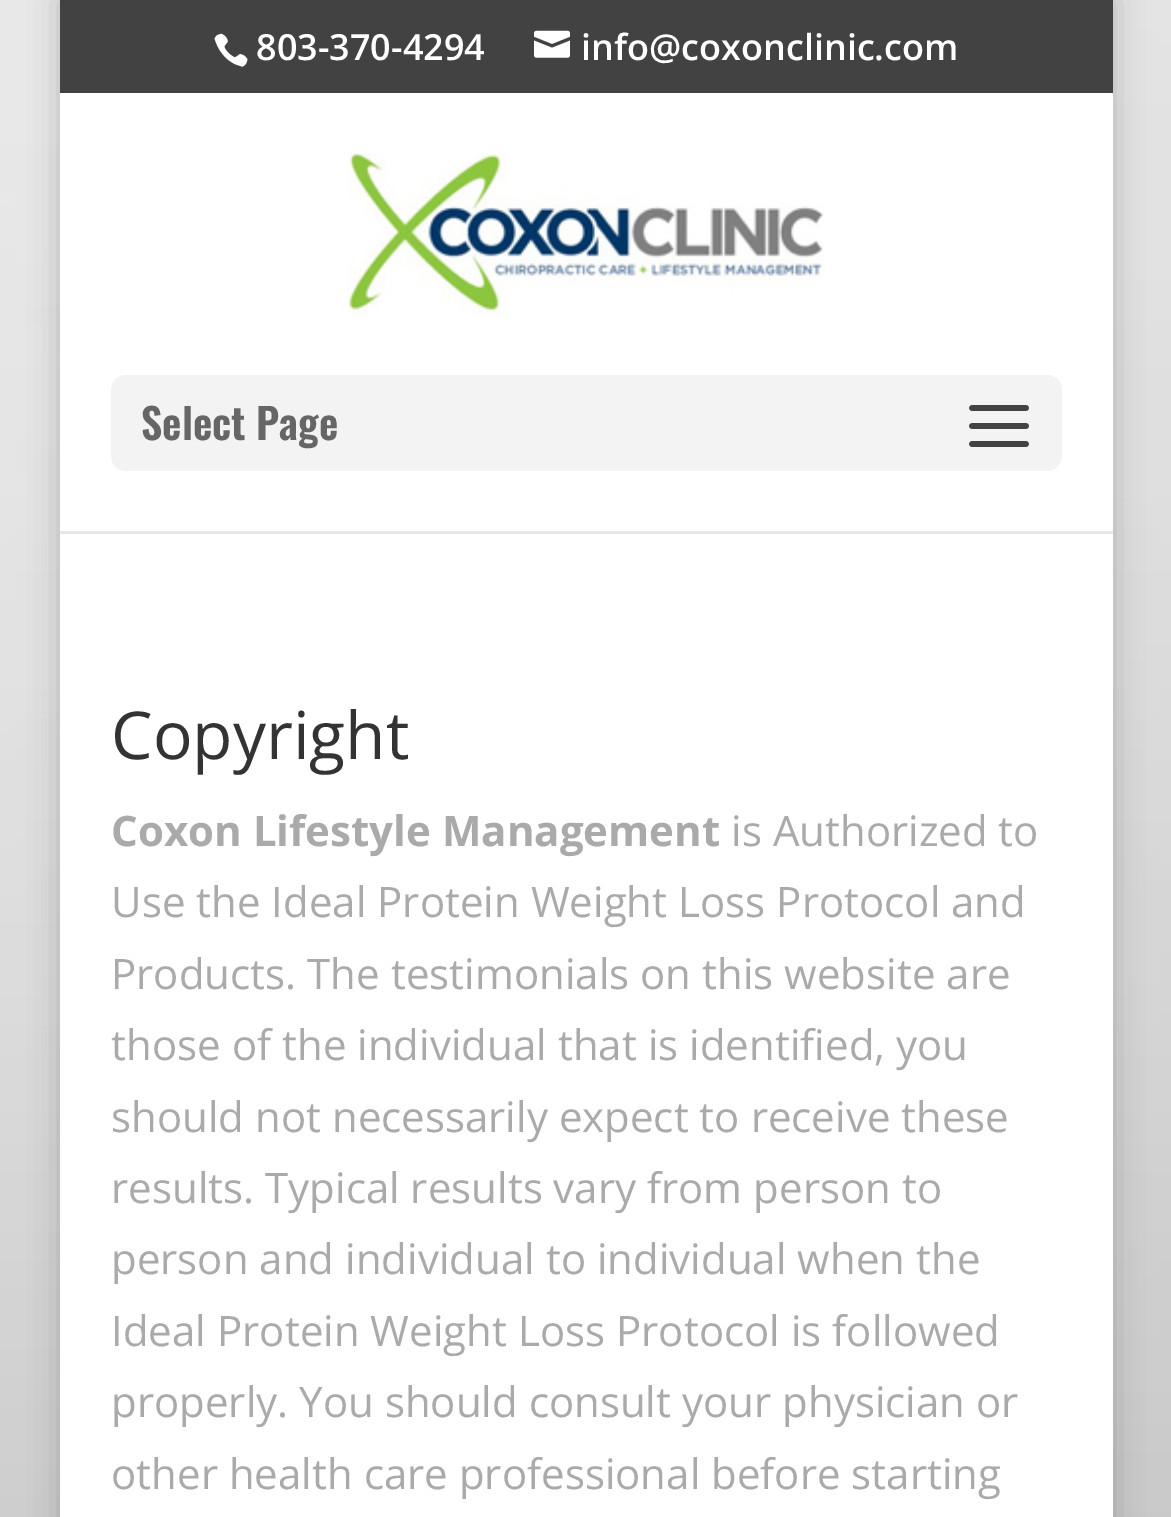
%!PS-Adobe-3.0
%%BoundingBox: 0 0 1171 1517
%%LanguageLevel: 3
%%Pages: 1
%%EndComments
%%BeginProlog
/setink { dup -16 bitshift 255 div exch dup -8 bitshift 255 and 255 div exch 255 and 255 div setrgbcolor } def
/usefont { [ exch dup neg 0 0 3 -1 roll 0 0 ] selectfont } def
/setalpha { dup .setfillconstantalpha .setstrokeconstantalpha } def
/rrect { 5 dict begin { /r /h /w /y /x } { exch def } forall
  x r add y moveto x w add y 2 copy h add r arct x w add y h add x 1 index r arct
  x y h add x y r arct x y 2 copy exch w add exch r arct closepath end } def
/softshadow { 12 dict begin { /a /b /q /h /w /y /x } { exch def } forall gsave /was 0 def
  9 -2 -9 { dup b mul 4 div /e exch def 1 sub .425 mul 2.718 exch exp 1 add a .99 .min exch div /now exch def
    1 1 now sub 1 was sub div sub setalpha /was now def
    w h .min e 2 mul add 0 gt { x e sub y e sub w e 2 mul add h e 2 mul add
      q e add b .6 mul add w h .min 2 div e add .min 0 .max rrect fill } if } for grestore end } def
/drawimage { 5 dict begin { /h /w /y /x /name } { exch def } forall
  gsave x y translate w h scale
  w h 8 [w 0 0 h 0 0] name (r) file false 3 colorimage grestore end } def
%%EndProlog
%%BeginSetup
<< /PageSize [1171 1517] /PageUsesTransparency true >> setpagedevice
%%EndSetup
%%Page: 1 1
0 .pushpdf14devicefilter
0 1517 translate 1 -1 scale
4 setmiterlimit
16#FFFFFF setink
0 0 1171 1517 rectfill
(img1.raw) 0 0 1171 1517 drawimage
16#000000 setink
60 0 1053 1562 0 15 0.2 softshadow
16#424242 setink
60 0 1053 93 rectfill
(img2.raw) 214 33 34 34 drawimage
/OpenSans-SemiBold 36 usefont
16#FFFFFF setink
256 60 moveto (803-370-4294) show
(img3.raw) 534 30 36 28 drawimage
581 60 moveto (info@coxonclinic.com) show
16#E6E6E6 setink
60 531 1053 3 rectfill
16#FFFFFF setink
60 93 1053 438 rectfill
(img4.raw) 348 153 476 162 drawimage
16#F3F3F3 setink
111 375 951 96 15 rrect fill
/Oswald-SemiBold 42 usefont
16#666666 setink
141 440 moveto (Select Page) show
(img5.raw) 969 405 60 42 drawimage
16#FFFFFF setink
60 534 1053 983 rectfill
/OpenSans-Regular 66 usefont
16#333333 setink
111 759 moveto (Copyright) show
/OpenSans-Bold 42 usefont
16#AAAAAA setink
111 846 moveto (Coxon Lifestyle Management) show
/OpenSans-Regular 42 usefont
[
    [(is Authorized to) 731 846]
    [(Use the Ideal Protein Weight Loss Protocol and) 111 917]
    [(Products. The testimonials on this website are) 111 989]
    [(those of the individual that is identified, you) 111 1060]
    [(should not necessarily expect to receive these) 111 1132]
    [(results. Typical results vary from person to) 111 1203]
    [(person and individual to individual when the) 111 1274]
    [(Ideal Protein Weight Loss Protocol is followed) 111 1346]
    [(properly. You should consult your physician or) 111 1417]
    [(other health care professional before starting) 111 1489]
] { aload pop moveto show } forall
.poppdf14devicefilter showpage
%%EOF
